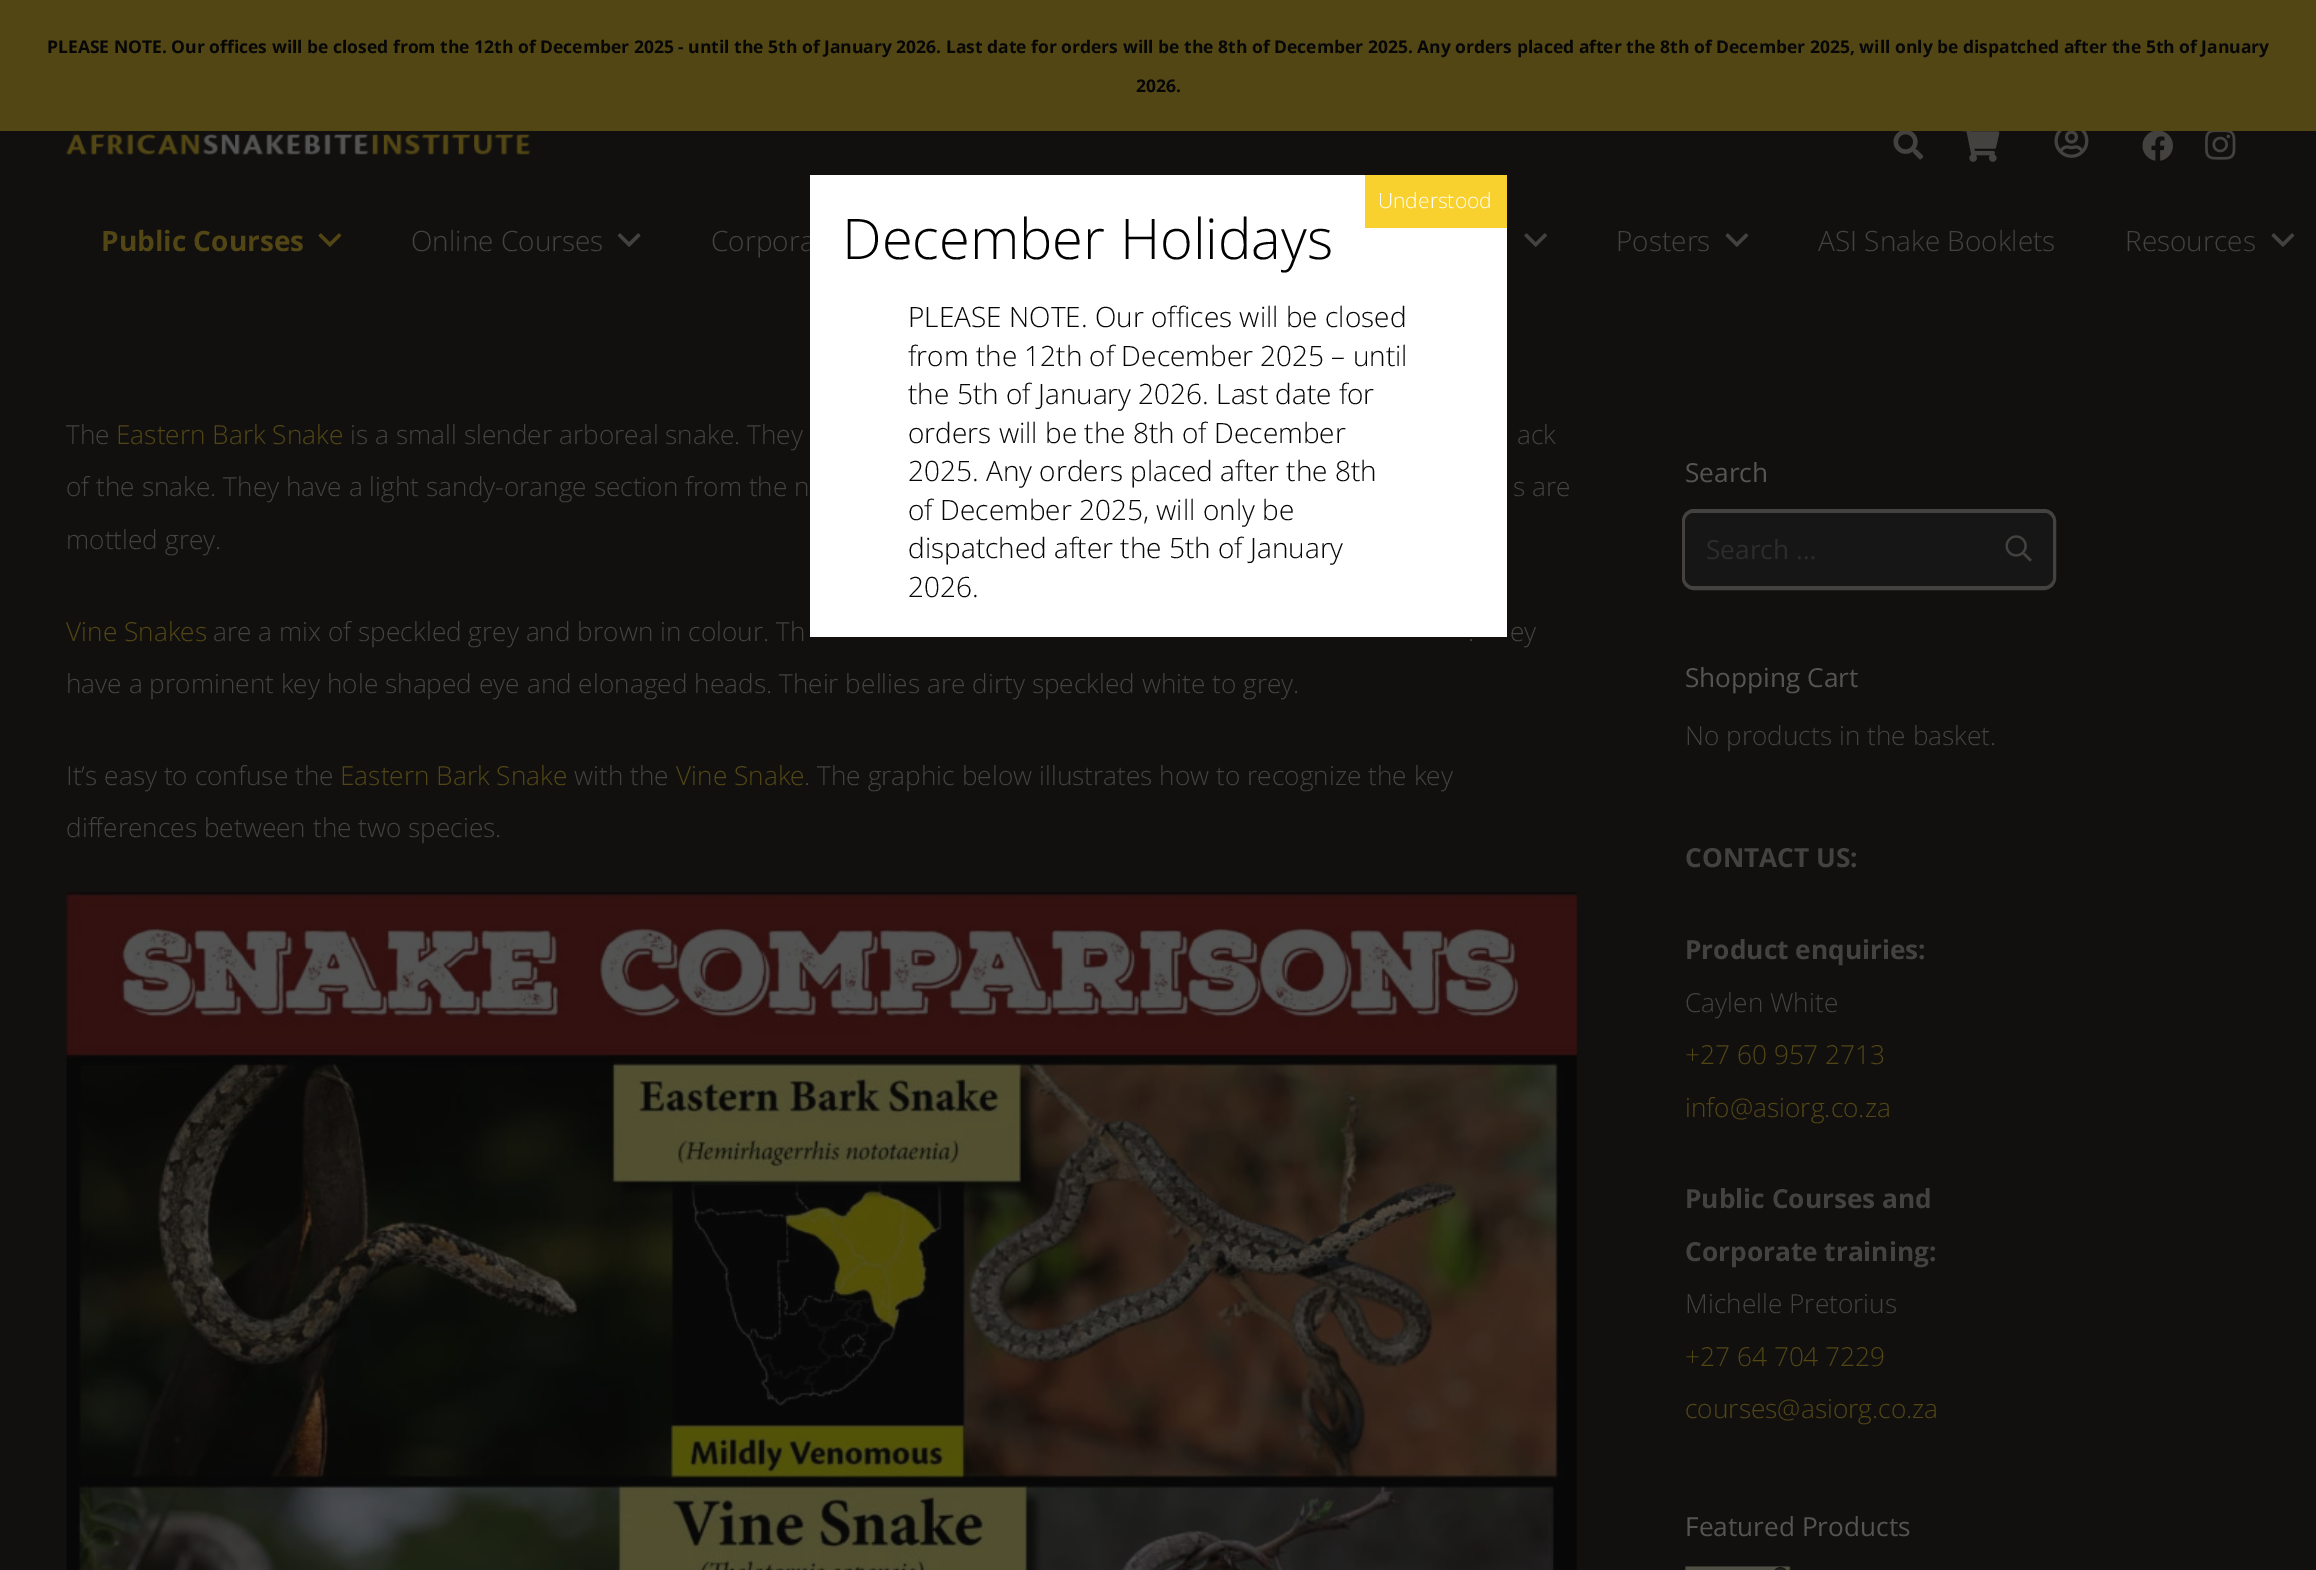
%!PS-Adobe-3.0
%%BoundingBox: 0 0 2316 1570
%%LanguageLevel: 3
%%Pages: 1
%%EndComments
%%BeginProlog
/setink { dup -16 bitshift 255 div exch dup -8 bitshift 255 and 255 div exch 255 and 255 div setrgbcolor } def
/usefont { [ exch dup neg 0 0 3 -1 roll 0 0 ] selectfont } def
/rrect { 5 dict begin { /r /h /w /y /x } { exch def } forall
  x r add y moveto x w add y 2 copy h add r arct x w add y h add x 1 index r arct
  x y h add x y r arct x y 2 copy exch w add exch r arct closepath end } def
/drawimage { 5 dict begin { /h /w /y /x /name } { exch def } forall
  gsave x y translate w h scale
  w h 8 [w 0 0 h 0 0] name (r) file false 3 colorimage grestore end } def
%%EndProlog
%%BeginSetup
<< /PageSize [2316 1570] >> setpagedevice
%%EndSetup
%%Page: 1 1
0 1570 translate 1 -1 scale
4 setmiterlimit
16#11100F setink
0 0 2316 1570 rectfill
16#524615 setink
0 0 2316 131 rectfill
/OpenSans-Bold 17.5 usefont
16#070707 setink
47 53 moveto (PLEASE NOTE. Our offices will be closed from the 12th of December 2025 - until the 5th of January 2026. Last date for orders will be the 8th of December 2025. Any orders placed after the 8th of December 2025, will only be dispatched after the 5th of January) show
1136 92 moveto (2026.) show
/OpenSans-Light 28 usefont
16#44423F setink
711 251 moveto (Corpora) show
16#FFFFFF setink
810 175 697 462 rectfill
16#F9D12E setink
1365 175 142 53 rectfill
/OpenSans-Light 21 usefont
16#FFFFFF setink
1378 208 moveto (Understood) show
/OpenSans-Light 56 usefont
16#000000 setink
842 259 moveto (December Holidays) show
/OpenSans-Light 28 usefont
16#070707 setink
[
    [(PLEASE NOTE. Our offices will be closed) 908 327]
    [(from the 12th of December 2025 – until) 908 366]
    [(the 5th of January 2026. Last date for) 908 404]
    [(orders will be the 8th of December) 908 443]
    [(2025. Any orders placed after the 8th) 908 481]
    [(of December 2025, will only be) 908 520]
    [(dispatched after the 5th of January) 908 558]
    [(2026.) 908 597]
] { aload pop moveto show } forall
(img1.raw) 65 134 466 21 drawimage
(img2.raw) 1893 131 31 29 drawimage
(img3.raw) 1961 131 39 31 drawimage
(img4.raw) 2054 131 35 27 drawimage
(img5.raw) 2142 131 31 30 drawimage
(img6.raw) 2205 131 31 29 drawimage
/OpenSans-Bold 28 usefont
16#524615 setink
101 251 moveto (Public Courses) show
(img7.raw) 318 233 24 14 drawimage
/OpenSans-Light 28 usefont
16#44423F setink
411 251 moveto (Online Courses) show
(img8.raw) 617 233 24 14 drawimage
(img9.raw) 1524 233 23 14 drawimage
1616 251 moveto (Posters) show
(img10.raw) 1725 233 24 14 drawimage
1818 251 moveto (ASI Snake Booklets) show
2125 251 moveto (Resources) show
(img10.raw) 2271 233 24 14 drawimage
/OpenSans-Light 26.25 usefont
66 444 moveto (The) show
16#524615 setink
116 444 moveto (Eastern Bark Snake) show
16#44423F setink
[
    [(is a small slender arboreal snake. They) 350 444]
    [(ack) 1517 444]
    [(of the snake. They have a light sandy-orange section from the n) 66 496]
    [(s are) 1513 496]
    [(mottled grey.) 66 549]
] { aload pop moveto show } forall
16#524615 setink
66 641 moveto (Vine Snakes) show
16#44423F setink
[
    [(are a mix of speckled grey and brown in colour. Th) 213 641]
    [(.) 1468 641]
    [(ey) 1510 641]
    [(have a prominent key hole shaped eye and elonaged heads. Their bellies are dirty speckled white to grey.) 66 693]
    [(It’s easy to confuse the) 66 785]
] { aload pop moveto show } forall
16#524615 setink
340 785 moveto (Eastern Bark Snake) show
16#44423F setink
574 785 moveto (with the) show
16#524615 setink
676 785 moveto (Vine Snake) show
16#44423F setink
804 785 moveto (. The graphic below illustrates how to recognize the key) show
66 837 moveto (differences between the two species.) show
(img11.raw) 66 892 1511 678 drawimage
/OpenSans-Regular 26.25 usefont
16#545454 setink
1685 482 moveto (Search) show
16#444240 setink
4 setlinewidth
1684 511 370 77 10 rrect stroke
16#161616 setink
1685 513 368 73 9 rrect fill
16#2D2C2B setink
1706 559 moveto (Search …) show
(img12.raw) 2005 535 27 27 drawimage
16#545454 setink
1685 687 moveto (Shopping Cart) show
/OpenSans-Light 26.25 usefont
16#44423F setink
1685 745 moveto (No products in the basket.) show
/OpenSans-Bold 26.25 usefont
1685 867 moveto (CONTACT US:) show
1685 959 moveto (Product enquiries:) show
/OpenSans-Light 26.25 usefont
1685 1012 moveto (Caylen White) show
16#524615 setink
1685 1064 moveto (+27 60 957 2713) show
1685 1117 moveto (info@asiorg.co.za) show
/OpenSans-Bold 26.25 usefont
16#44423F setink
1685 1208 moveto (Public Courses and) show
1685 1261 moveto (Corporate training:) show
/OpenSans-Light 26.25 usefont
1685 1313 moveto (Michelle Pretorius) show
16#524615 setink
1685 1366 moveto (+27 64 704 7229) show
1685 1418 moveto (courses@asiorg.co.za) show
/OpenSans-Regular 26.25 usefont
16#545454 setink
1685 1536 moveto (Featured Products) show
(img13.raw) 1685 1566 106 4 drawimage
showpage
%%EOF
